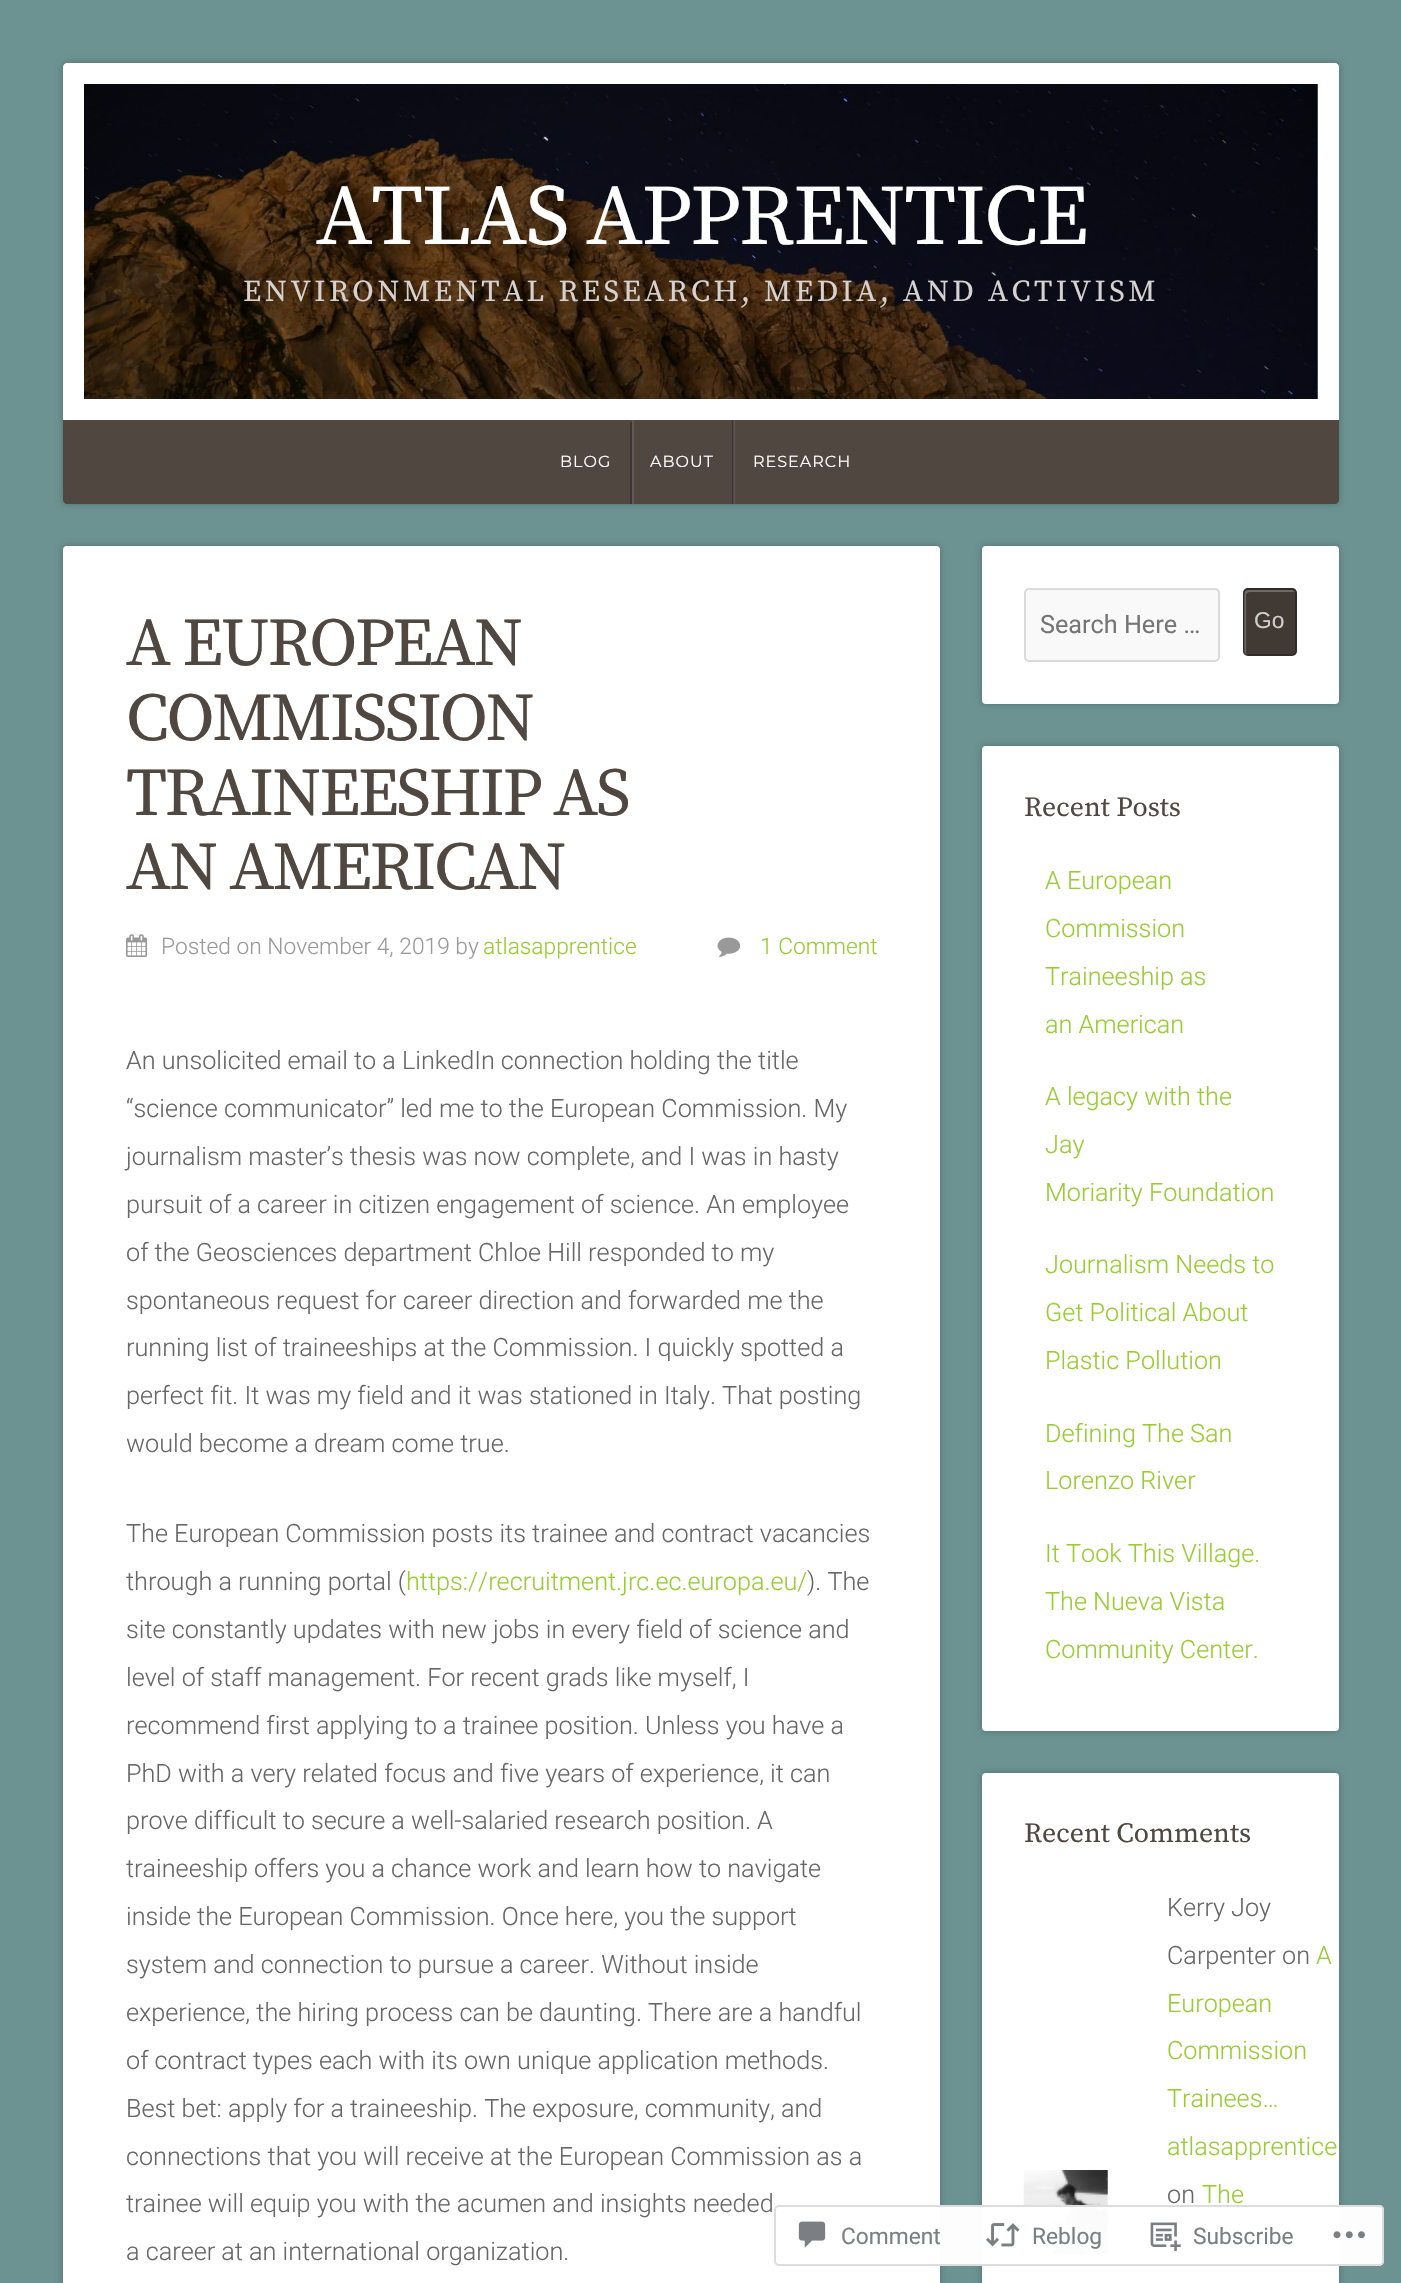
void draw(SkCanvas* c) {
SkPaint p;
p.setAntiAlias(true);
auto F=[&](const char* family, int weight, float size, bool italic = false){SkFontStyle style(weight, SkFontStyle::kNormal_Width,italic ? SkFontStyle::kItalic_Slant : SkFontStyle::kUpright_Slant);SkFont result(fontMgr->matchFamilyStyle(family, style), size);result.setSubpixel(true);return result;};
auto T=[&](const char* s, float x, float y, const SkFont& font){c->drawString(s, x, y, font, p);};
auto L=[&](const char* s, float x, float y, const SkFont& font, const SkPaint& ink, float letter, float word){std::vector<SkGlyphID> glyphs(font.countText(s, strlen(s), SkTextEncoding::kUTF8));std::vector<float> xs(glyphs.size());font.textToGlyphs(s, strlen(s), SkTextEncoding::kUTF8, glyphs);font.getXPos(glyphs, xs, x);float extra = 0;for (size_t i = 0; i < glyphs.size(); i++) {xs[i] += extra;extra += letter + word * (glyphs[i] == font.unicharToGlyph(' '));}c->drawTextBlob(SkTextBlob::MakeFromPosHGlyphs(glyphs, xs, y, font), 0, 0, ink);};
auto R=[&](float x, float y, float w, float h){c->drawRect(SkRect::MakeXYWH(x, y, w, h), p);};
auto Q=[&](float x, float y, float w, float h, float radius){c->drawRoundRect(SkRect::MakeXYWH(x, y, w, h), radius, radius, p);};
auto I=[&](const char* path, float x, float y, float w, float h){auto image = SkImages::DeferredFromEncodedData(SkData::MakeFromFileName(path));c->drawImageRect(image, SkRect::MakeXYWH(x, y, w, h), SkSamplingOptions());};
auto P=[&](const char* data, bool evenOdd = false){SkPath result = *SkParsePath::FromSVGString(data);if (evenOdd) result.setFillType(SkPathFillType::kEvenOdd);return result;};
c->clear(0xff6c9292);
p.setColor(0x3d000000);
p.setMaskFilter(SkMaskFilter::MakeBlur(kNormal_SkBlurStyle, 3.5));
c->drawRoundRect(SkRect::MakeXYWH(63,63,1276,441),4,4,p);
p.setMaskFilter(nullptr);
p.setColor(0xffffffff);
c->drawPath(P("M67 63h1268c2 0 4 2 4 4v353h-1276v-353c0-2 2-4 4-4z"),p);
I("1.png",84,84,1234,315);
auto f1 = F("Source Serif Pro",400,85.75);
L("ATLAS APPRENTICE",316,244,f1,p,-1.75,0);
auto f2 = F("Source Serif Pro",400,30.25);
p.setColor(0xffd6d2d0);
L("ENVIRONMENTAL RESEARCH, MEDIA, AND ACTIVISM",243,301,f2,p,3.5,0);
p.setColor(0xff504741);
c->drawPath(P("M63 420h1276v80c0 2-2 4-4 4h-1268c-2 0-4-2-4-4z"),p);
p.setColor(0xff625954);
R(734,420,1,84);
p.setColor(0xff3c3531);
R(630,422,2,82);
auto f3 = F("Montserrat",400,16);
p.setColor(0xffffffff);
L("BLOG",560,467,f3,p,1,0);
p.setColor(0xff3c3531);
R(732,420,1,84);
p.setColor(0xff504946);
R(733,420,1,84);
p.setColor(0xff625954);
R(632,420,2,84);
p.setColor(0xffffffff);
L("ABOUT",650,467,f3,p,1,0);
L("RESEARCH",753,467,f3,p,1,0);
p.setColor(0x3d000000);
p.setMaskFilter(SkMaskFilter::MakeBlur(kNormal_SkBlurStyle, 3.5));
c->drawRoundRect(SkRect::MakeXYWH(63,546,877,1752),4,4,p);
p.setMaskFilter(nullptr);
p.setColor(0xffffffff);
Q(63,546,877,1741,4);
auto f4 = F("Source Serif Pro",400,68);
p.setColor(0xff504741);
L("A EUROPEAN",126,665,f4,p,-2.5,0);
L("COMMISSION",126,740,f4,p,-2.5,0);
L("TRAINEESHIP AS",126,815,f4,p,-2.5,0);
L("AN AMERICAN",126,889,f4,p,-2.5,0);
I("2.png",126,934,22,23);
auto f5 = F("Roboto",300,22.75);
p.setColor(0xff999999);
T("Posted on November 4, 2019 by",161,954,f5);
p.setColor(0xff99cc33);
T("atlasapprentice",483,954,f5);
I("3.png",717,937,24,20);
T("1 Comment",760,954,f5);
auto f6 = F("Roboto",300,25.2);
p.setColor(0xff666666);
T("An unsolicited email to a LinkedIn connection holding the title",126,1069,f6);
T("“science communicator” led me to the European Commission. My",126,1117,f6);
T("journalism master’s thesis was now complete, and I was in hasty",126,1165,f6);
T("pursuit of a career in citizen engagement of science. An employee",126,1213,f6);
T("of the Geosciences department Chloe Hill responded to my",126,1261,f6);
T("spontaneous request for career direction and forwarded me the",126,1309,f6);
T("running list of traineeships at the Commission. I quickly spotted a",126,1356,f6);
T("perfect fit. It was my field and it was stationed in Italy. That posting",126,1404,f6);
T("would become a dream come true.",126,1452,f6);
T("The European Commission posts its trainee and contract vacancies",126,1542,f6);
T("through a running portal (",126,1590,f6);
p.setColor(0xff99cc33);
T("https://recruitment.jrc.ec.europa.eu/",406,1590,f6);
p.setColor(0xff666666);
T("). The",807,1590,f6);
T("site constantly updates with new jobs in every field of science and",126,1638,f6);
T("level of staff management. For recent grads like myself, I",126,1686,f6);
T("recommend first applying to a trainee position. Unless you have a",126,1734,f6);
T("PhD with a very related focus and five years of experience, it can",126,1782,f6);
T("prove difficult to secure a well-salaried research position. A",126,1829,f6);
T("traineeship offers you a chance work and learn how to navigate",126,1877,f6);
T("inside the European Commission. Once here, you the support",126,1925,f6);
T("system and connection to pursue a career. Without inside",126,1973,f6);
T("experience, the hiring process can be daunting. There are a handful",126,2021,f6);
T("of contract types each with its own unique application methods.",126,2069,f6);
T("Best bet: apply for a traineeship. The exposure, community, and",126,2117,f6);
T("connections that you will receive at the European Commission as a",126,2165,f6);
T("trainee will equip you with the acumen and insights needed",126,2212,f6);
T("a career at an international organization.",126,2260,f6);
p.setColor(0x3d000000);
p.setMaskFilter(SkMaskFilter::MakeBlur(kNormal_SkBlurStyle, 3.5));
c->drawRoundRect(SkRect::MakeXYWH(982,546,357,158),4,4,p);
p.setMaskFilter(nullptr);
p.setColor(0xffffffff);
Q(982,546,357,158,4);
p.setColor(0xfff9f9f9);
Q(1024,588,196,74,5);
p.setStroke(true);
p.setStrokeWidth(2);
p.setColor(0x1f000000);
c->drawRoundRect(SkRect::MakeXYWH(1025,589,194,72),4,4,p);
auto f7 = F("Roboto",400,25.2);
p.setStroke(false);
p.setColor(0xff757575);
T("Search Here …",1040,633,f7);
p.setColor(0xff403934);
Q(1243,588,54,68,5);
p.setColor(0xff6e6965);
c->drawPath(P("M1250 592h45c-1-1-2-2-4-2h-43c-2 0-4 2-4 4v57c0 2 1 3 3 4l-1-2v-58c0-2 2-3 4-3z"),p);
p.setStroke(true);
p.setColor(0x40000000);
c->drawRoundRect(SkRect::MakeXYWH(1244,589,52,66),4,4,p);
auto f8 = F("Liberation Sans",400,22.75);
p.setStroke(false);
p.setColor(0xffcfcecc);
T("Go",1254,628,f8);
p.setColor(0x3d000000);
p.setMaskFilter(SkMaskFilter::MakeBlur(kNormal_SkBlurStyle, 3.5));
c->drawRoundRect(SkRect::MakeXYWH(982,746,357,985),4,4,p);
p.setMaskFilter(nullptr);
p.setColor(0xffffffff);
Q(982,746,357,985,4);
auto f9 = F("Source Serif Pro",400,27.75);
p.setColor(0xff504741);
T("Recent Posts",1024,816,f9);
p.setColor(0xff99cc33);
T("A European",1045,889,f6);
T("Commission",1045,937,f6);
T("Traineeship as",1045,985,f6);
T("an American",1045,1033,f6);
T("A legacy with the",1045,1105,f6);
T("Jay",1045,1153,f6);
T("Moriarity Foundation",1045,1201,f6);
T("Journalism Needs to",1045,1273,f6);
T("Get Political About",1045,1321,f6);
T("Plastic Pollution",1045,1369,f6);
T("Defining The San",1045,1442,f6);
T("Lorenzo River",1045,1489,f6);
T("It Took This Village.",1045,1562,f6);
T("The Nueva Vista",1045,1610,f6);
T("Community Center.",1045,1658,f6);
p.setColor(0x3d000000);
p.setMaskFilter(SkMaskFilter::MakeBlur(kNormal_SkBlurStyle, 3.5));
c->drawRoundRect(SkRect::MakeXYWH(982,1773,357,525),4,4,p);
p.setMaskFilter(nullptr);
p.setColor(0xffffffff);
Q(982,1773,357,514,4);
p.setColor(0xff504741);
T("Recent Comments",1024,1842,f9);
p.setColor(0xff666666);
T("Kerry Joy",1167,1916,f6);
T("Carpenter on",1167,1964,f6);
p.setColor(0xff99cc33);
T("A",1316,1964,f6);
T("European",1167,2012,f6);
T("Commission",1167,2059,f6);
T("Trainees…",1167,2107,f6);
I("4.png",1023,2170,85,84);
T("atlasapprentice",1167,2155,f6);
p.setColor(0xff666666);
T("on",1167,2203,f6);
p.setColor(0xff99cc33);
T("The",1202,2203,f6);
p.setColor(0xfaffffff);
Q(774,2205,610,61,5);
p.setStroke(true);
p.setColor(0xfadcdcde);
c->drawRoundRect(SkRect::MakeXYWH(775,2206,608,59),4,4,p);
I("5.png",798,2221,28,27);
auto f10 = F("Roboto",400,22.75);
p.setStroke(false);
p.setColor(0xff7b7f84);
T("Comment",841,2244,f10);
I("6.png",986,2223,34,24);
T("Reblog",1032,2244,f10);
I("7.png",1150,2222,31,29);
T("Subscribe",1193,2244,f10);
I("8.png",1333,2231,32,8);
}
